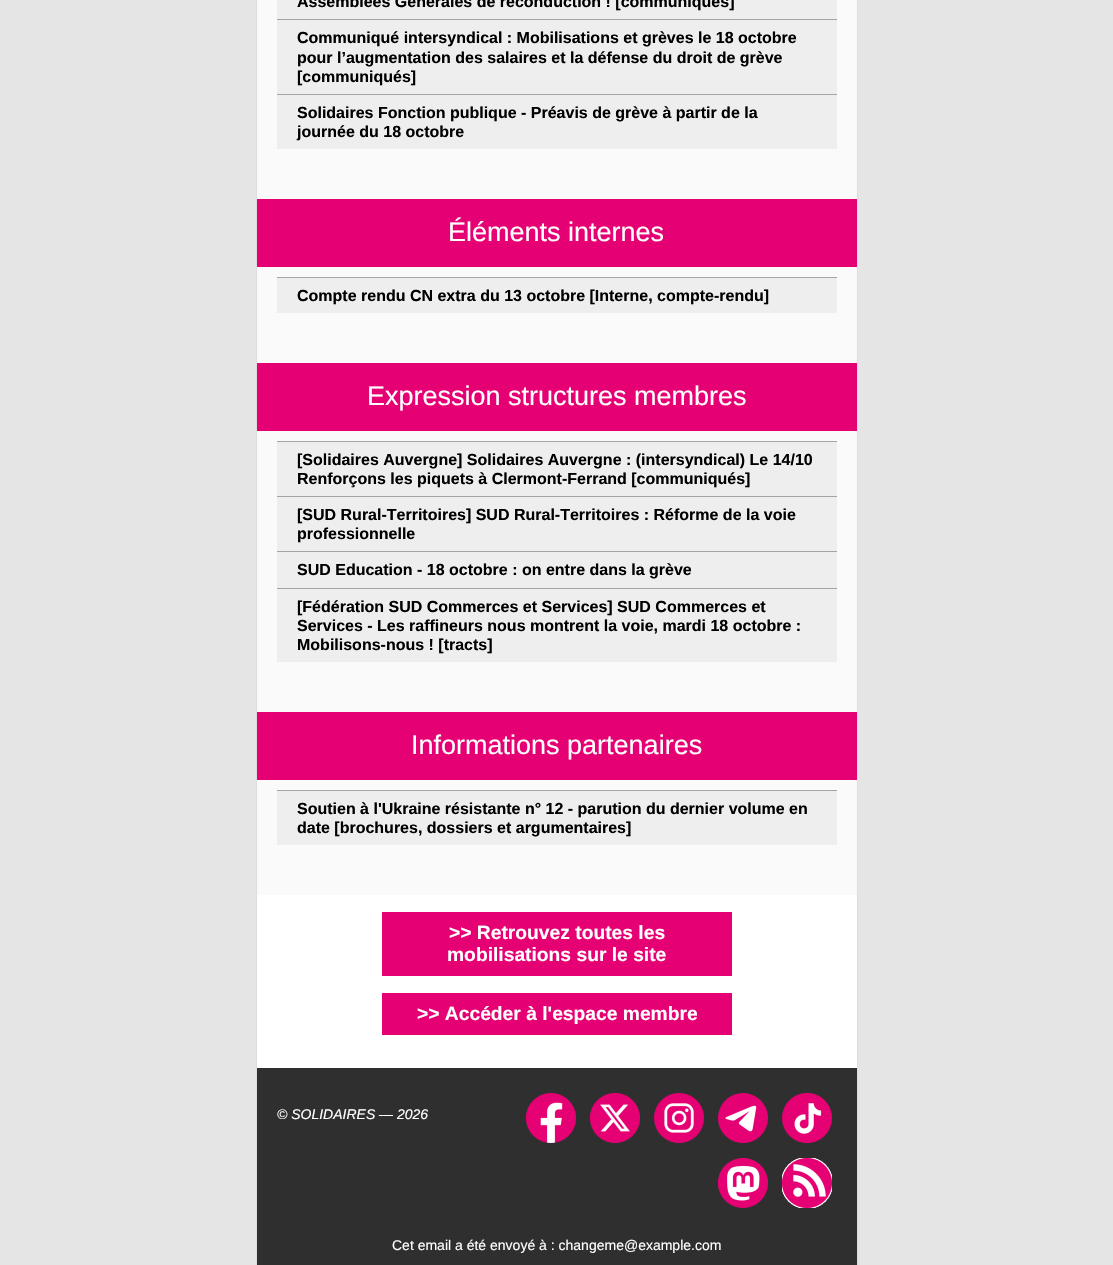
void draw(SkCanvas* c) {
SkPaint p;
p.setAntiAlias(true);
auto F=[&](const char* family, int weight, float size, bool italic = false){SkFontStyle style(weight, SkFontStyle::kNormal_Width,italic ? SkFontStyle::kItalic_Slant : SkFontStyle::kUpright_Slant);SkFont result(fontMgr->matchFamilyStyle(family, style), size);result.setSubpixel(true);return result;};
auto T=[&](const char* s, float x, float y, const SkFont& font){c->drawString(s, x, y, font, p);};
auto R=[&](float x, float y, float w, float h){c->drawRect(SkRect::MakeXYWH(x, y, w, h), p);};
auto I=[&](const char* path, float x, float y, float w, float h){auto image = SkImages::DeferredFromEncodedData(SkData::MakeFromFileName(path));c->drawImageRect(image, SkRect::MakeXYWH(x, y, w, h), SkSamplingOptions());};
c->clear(0xffe5e5e5);
p.setColor(0xffffffff);
R(257,895,600,173);
p.setStroke(true);
p.setStrokeWidth(1);
p.setColor(0xffdddddd);
c->drawRect(SkRect::MakeXYWH(256.5,-.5,601,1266),p);
p.setStroke(false);
p.setColor(0xfffafafa);
R(257,0,600,199);
p.setColor(0xffeeeeee);
R(277,0,560,19);
auto f1 = F("Liberation Sans",700,16);
p.setColor(0xff000000);
T("Assemblées Générales de reconduction ! [communiqués]",297,7,f1);
p.setColor(0xffeeeeee);
R(277,20,560,74);
p.setColor(0xffa6a5a5);
R(277,19,560,1);
p.setColor(0xff000000);
T("Communiqué intersyndical : Mobilisations et grèves le 18 octobre",297,43,f1);
T("pour l’augmentation des salaires et la défense du droit de grève",297,63,f1);
T("[communiqués]",297,82,f1);
p.setColor(0xffeeeeee);
R(277,95,560,54);
p.setColor(0xffa6a5a5);
R(277,94,560,1);
p.setColor(0xff000000);
T("Solidaires Fonction publique - Préavis de grève à partir de la",297,118,f1);
T("journée du 18 octobre",297,137,f1);
p.setColor(0xffe50073);
R(257,199,600,68);
auto f2 = F("Liberation Sans",400,27);
p.setColor(0xffffffff);
T("Éléments internes",448,241,f2);
p.setColor(0xfffafafa);
R(257,267,600,96);
p.setColor(0xffeeeeee);
R(277,278,560,35);
p.setColor(0xffa6a5a5);
R(277,277,560,1);
p.setColor(0xff000000);
T("Compte rendu CN extra du 13 octobre [Interne, compte-rendu]",297,301,f1);
p.setColor(0xffe50073);
R(257,363,600,68);
p.setColor(0xffffffff);
T("Expression structures membres",367,405,f2);
p.setColor(0xfffafafa);
R(257,431,600,281);
p.setColor(0xffeeeeee);
R(277,442,560,54);
p.setColor(0xffa6a5a5);
R(277,441,560,1);
p.setColor(0xff000000);
T("[Solidaires Auvergne] Solidaires Auvergne : (intersyndical) Le 14/10",297,465,f1);
T("Renforçons les piquets à Clermont-Ferrand [communiqués]",297,484,f1);
p.setColor(0xffeeeeee);
R(277,497,560,54);
p.setColor(0xffa6a5a5);
R(277,496,560,1);
p.setColor(0xff000000);
T("[SUD Rural-Territoires] SUD Rural-Territoires : Réforme de la voie",297,520,f1);
T("professionnelle",297,539,f1);
p.setColor(0xffeeeeee);
R(277,552,560,36);
p.setColor(0xffa6a5a5);
R(277,551,560,1);
p.setColor(0xff000000);
T("SUD Education - 18 octobre : on entre dans la grève",297,575,f1);
p.setColor(0xffeeeeee);
R(277,589,560,73);
p.setColor(0xffa6a5a5);
R(277,588,560,1);
p.setColor(0xff000000);
T("[Fédération SUD Commerces et Services] SUD Commerces et",297,612,f1);
T("Services - Les raffineurs nous montrent la voie, mardi 18 octobre :",297,631,f1);
T("Mobilisons-nous ! [tracts]",297,650,f1);
p.setColor(0xffe50073);
R(257,712,600,68);
p.setColor(0xffffffff);
T("Informations partenaires",411,754,f2);
p.setColor(0xfffafafa);
R(257,780,600,115);
p.setColor(0xffeeeeee);
R(277,791,560,54);
p.setColor(0xffa6a5a5);
R(277,790,560,1);
p.setColor(0xff000000);
T("Soutien à l'Ukraine résistante n° 12 - parution du dernier volume en",297,814,f1);
T("date [brochures, dossiers et argumentaires]",297,833,f1);
p.setColor(0xffe50073);
R(382,912,350,64);
auto f3 = F("Liberation Sans",700,19.25);
p.setColor(0xffffffff);
T(">> Retrouvez toutes les",449,939,f3);
T("mobilisations sur le site",447,961,f3);
p.setColor(0xffe50073);
R(382,993,350,42);
p.setColor(0xffffffff);
T(">> Accéder à l'espace membre",417,1020,f3);
p.setColor(0xff302f2f);
R(257,1068,600,197);
auto f4 = F("Liberation Sans",400,14,true);
p.setColor(0xffffffff);
T("© SOLIDAIRES — 2026",277,1119,f4);
I("1.png",526,1093,50,50);
I("2.png",590,1093,50,50);
I("3.png",654,1093,50,50);
I("4.png",718,1093,50,50);
I("5.png",782,1093,50,50);
I("6.png",718,1158,50,50);
I("7.png",782,1158,50,50);
auto f5 = F("Liberation Sans",400,14);
T("Cet email a été envoyé à : changeme@example.com",392,1250,f5);
}
